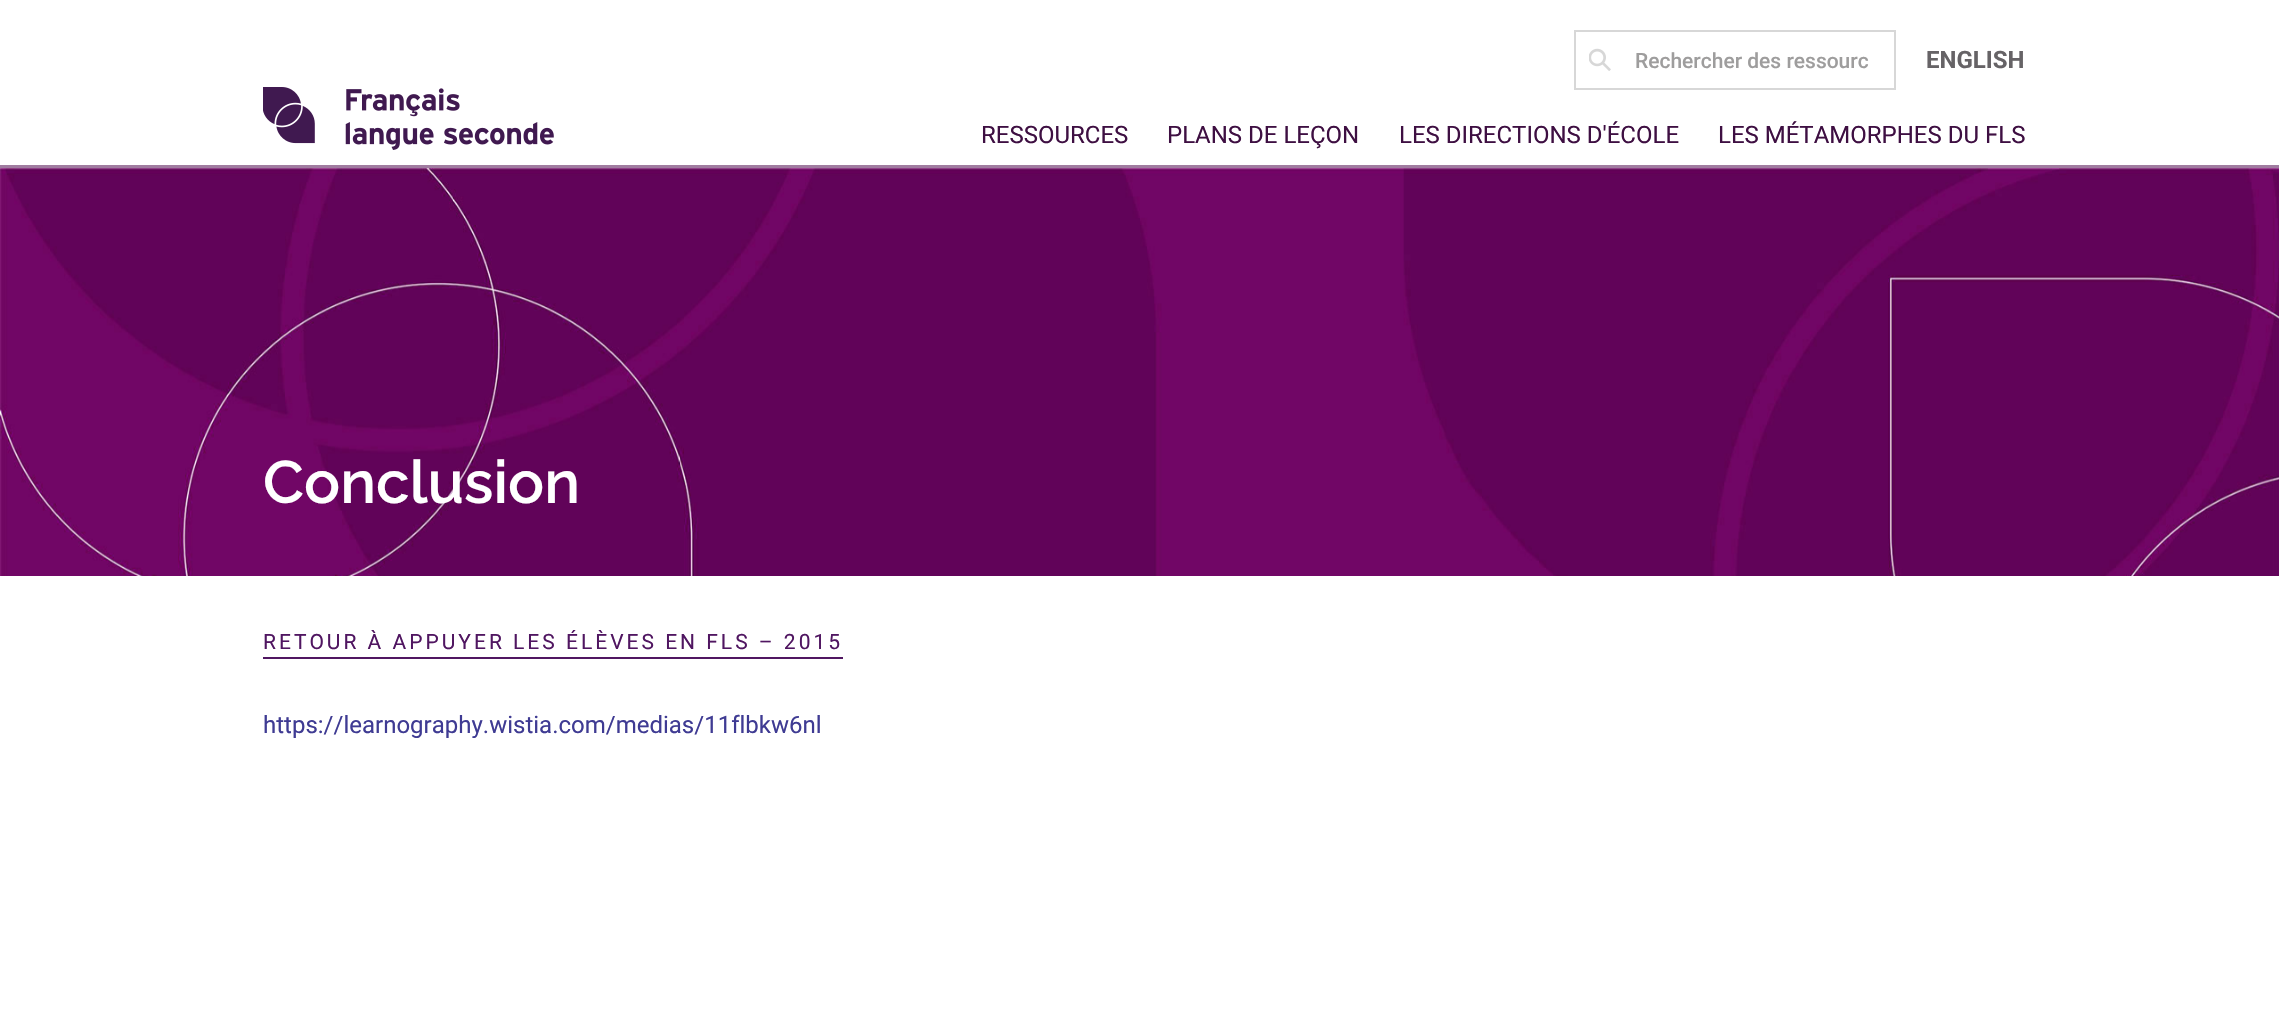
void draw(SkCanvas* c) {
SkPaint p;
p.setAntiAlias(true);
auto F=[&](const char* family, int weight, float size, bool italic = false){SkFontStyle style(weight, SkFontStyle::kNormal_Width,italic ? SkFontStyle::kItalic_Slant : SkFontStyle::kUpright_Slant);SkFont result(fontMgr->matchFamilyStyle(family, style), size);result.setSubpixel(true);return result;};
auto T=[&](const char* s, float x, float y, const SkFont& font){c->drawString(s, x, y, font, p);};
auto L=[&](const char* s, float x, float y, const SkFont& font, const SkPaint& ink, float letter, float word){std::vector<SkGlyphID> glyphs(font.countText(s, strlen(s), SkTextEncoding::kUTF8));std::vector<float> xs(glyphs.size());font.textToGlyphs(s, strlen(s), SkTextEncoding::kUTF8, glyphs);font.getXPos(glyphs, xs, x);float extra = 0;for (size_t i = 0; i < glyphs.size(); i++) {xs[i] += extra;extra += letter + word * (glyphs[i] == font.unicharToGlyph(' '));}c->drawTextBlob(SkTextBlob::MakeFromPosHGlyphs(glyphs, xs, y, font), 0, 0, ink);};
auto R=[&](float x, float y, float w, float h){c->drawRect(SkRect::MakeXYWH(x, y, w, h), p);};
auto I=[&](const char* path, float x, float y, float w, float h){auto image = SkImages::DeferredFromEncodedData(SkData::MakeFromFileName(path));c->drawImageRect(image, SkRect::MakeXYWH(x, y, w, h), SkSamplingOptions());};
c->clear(0xffffffff);
p.setColor(0xffa07ca0);
R(0,165,2279,3);
I("1.png",263,87,291,63);
p.setStroke(true);
p.setStrokeWidth(2);
p.setColor(0xffd7d7d7);
c->drawRect(SkRect::MakeXYWH(1575,31,320,58),p);
I("2.png",1589,48,22,23);
auto f1 = F("Roboto",500,21);
p.setStroke(false);
p.setColor(0xff9e9d9d);
T("Rechercher des ressourc",1635,68,f1);
auto f2 = F("Roboto",700,24);
p.setColor(0xff666366);
T("ENGLISH",1926,68,f2);
auto f3 = F("Roboto",400,24);
p.setColor(0xff3e0f42);
T("RESSOURCES",981,143,f3);
T("PLANS DE LEÇON",1167,143,f3);
T("LES DIRECTIONS D'ÉCOLE",1399,143,f3);
T("LES MÉTAMORPHES DU FLS",1718,143,f3);
I("3.png",0,168,2279,408);
auto f4 = F("Raleway",600,60);
p.setColor(0xffffffff);
T("Conclusion",263,503,f4);
auto f5 = F("Roboto",400,21);
p.setColor(0xff501661);
L("RETOUR À APPUYER LES ÉLÈVES EN FLS – 2015",263,649,f5,p,3,0);
R(263,657,580,2);
p.setColor(0xff3f3b93);
T("https://learnography.wistia.com/medias/11flbkw6nl",263,733,f3);
}
